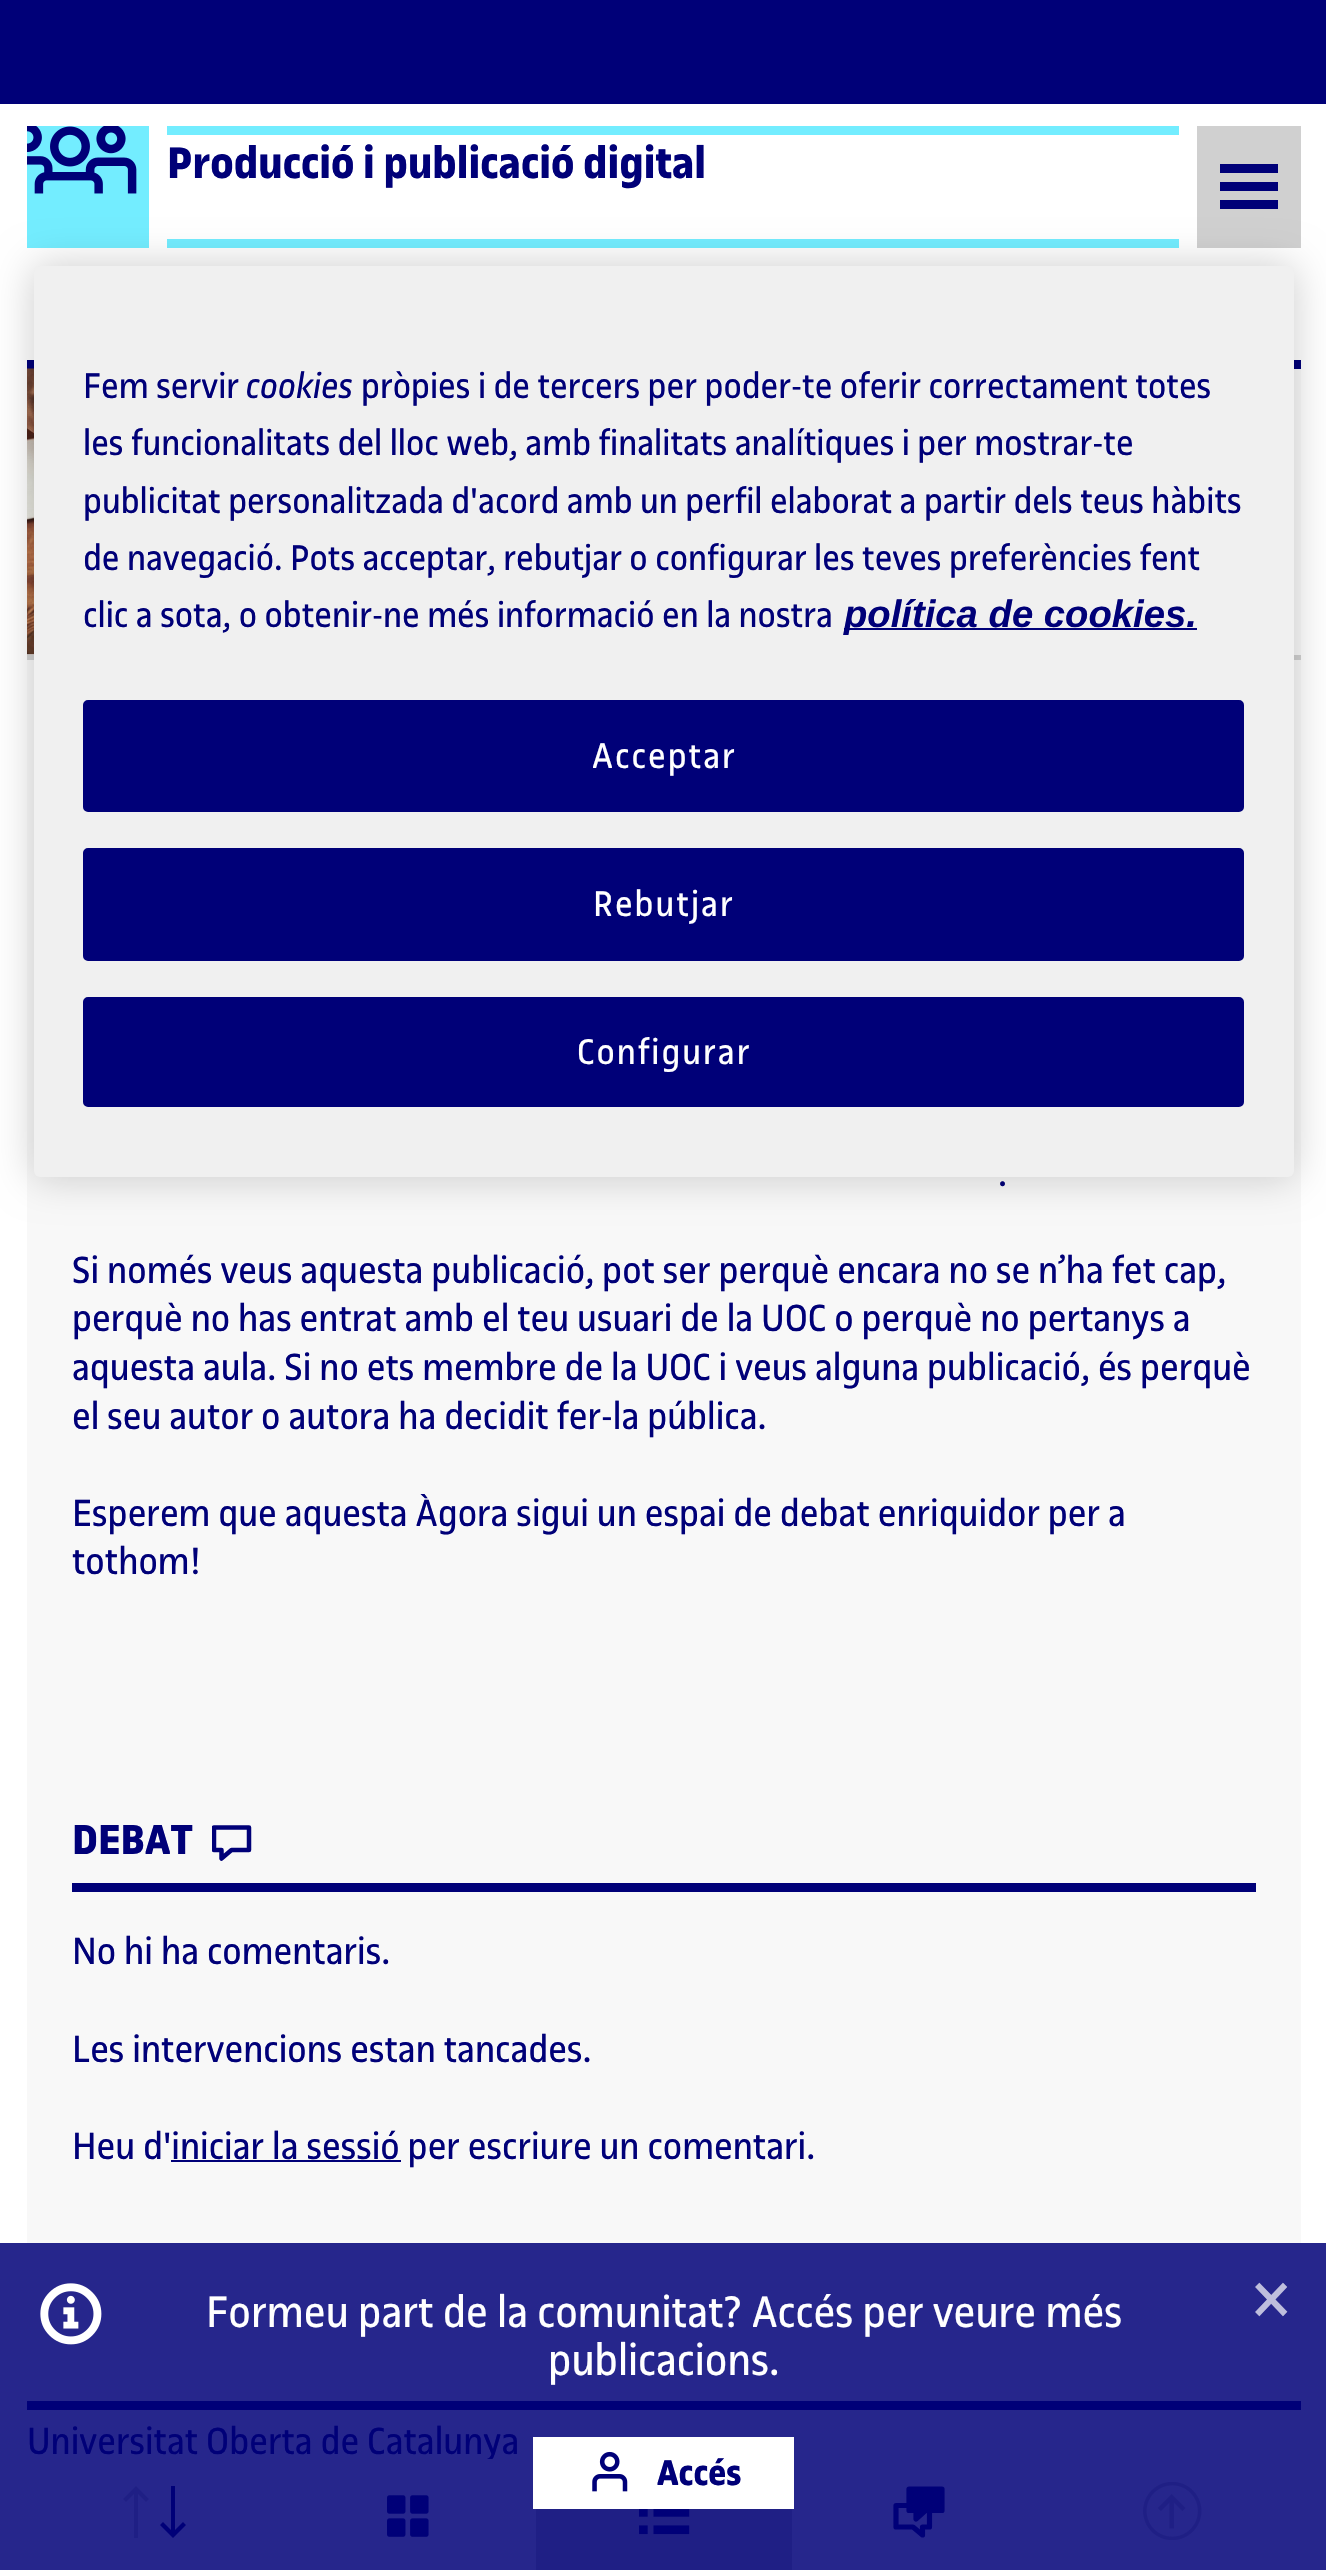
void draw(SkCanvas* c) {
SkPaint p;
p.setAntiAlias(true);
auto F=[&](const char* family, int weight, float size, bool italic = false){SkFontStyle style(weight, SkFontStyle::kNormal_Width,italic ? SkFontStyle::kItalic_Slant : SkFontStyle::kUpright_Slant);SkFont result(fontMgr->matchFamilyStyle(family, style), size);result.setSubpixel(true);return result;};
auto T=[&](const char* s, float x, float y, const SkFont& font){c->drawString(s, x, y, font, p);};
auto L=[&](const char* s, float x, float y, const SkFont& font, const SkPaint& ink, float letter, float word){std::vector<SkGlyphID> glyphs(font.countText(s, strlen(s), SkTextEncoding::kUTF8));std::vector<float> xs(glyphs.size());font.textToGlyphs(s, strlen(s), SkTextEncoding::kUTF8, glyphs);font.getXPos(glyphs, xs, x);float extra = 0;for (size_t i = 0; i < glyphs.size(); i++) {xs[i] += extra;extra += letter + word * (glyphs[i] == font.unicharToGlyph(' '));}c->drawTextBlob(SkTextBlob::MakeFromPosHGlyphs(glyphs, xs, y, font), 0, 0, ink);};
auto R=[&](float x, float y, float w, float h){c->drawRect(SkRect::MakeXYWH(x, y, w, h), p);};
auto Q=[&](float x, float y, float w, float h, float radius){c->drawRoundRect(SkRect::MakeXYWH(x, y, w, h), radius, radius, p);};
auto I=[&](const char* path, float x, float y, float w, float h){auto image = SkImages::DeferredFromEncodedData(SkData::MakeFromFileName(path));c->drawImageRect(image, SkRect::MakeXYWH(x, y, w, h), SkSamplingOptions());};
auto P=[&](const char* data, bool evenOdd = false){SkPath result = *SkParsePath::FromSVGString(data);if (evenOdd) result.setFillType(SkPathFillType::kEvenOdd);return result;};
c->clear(0xffffffff);
p.setColor(0xff26268c);
R(0,2243,1326,216);
p.setColor(0xff000078);
R(0,0,1326,104);
p.setColor(0xff73edff);
R(27,126,122,122);
I("1.png",27,126,110,68);
R(167,126,1012,9);
R(167,239,1012,9);
auto f1 = F("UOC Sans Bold",700,47.25);
p.setColor(0xff000078);
T("Producció i publicació digital",167,178,f1);
p.setColor(0xffd0d0d0);
R(1197,126,104,122);
p.setColor(0xff000078);
R(1220,164,58,9);
R(1220,182,58,9);
R(1220,200,58,9);
p.setColor(0xfff8f8f8);
R(27,369,1274,1874);
p.setColor(0xff000078);
R(27,360,1274,9);
p.setColor(0xfff3f3f3);
R(27,654,7,1);
I("2.png",27,368,7,287);
p.setColor(0xffd0d0d0);
R(27,655,1274,5);
auto f2 = F("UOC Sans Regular",400,40.5);
p.setColor(0xff000078);
T(".",998,1186,f2);
T("Si només veus aquesta publicació, pot ser perquè encara no se n’ha fet cap,",72,1283,f2);
T("perquè no has entrat amb el teu usuari de la UOC o perquè no pertanys a",72,1331,f2);
T("aquesta aula. Si no ets membre de la UOC i veus alguna publicació, és perquè",72,1380,f2);
T("el seu autor o autora ha decidit fer-la pública.",72,1429,f2);
T("Esperem que aquesta Àgora sigui un espai de debat enriquidor per a",72,1526,f2);
T("tothom!",72,1574,f2);
R(72,1883,1184,9);
auto f3 = F("UOC Sans Bold",700,45);
T("DEBAT",72,1854,f3);
c->save();
c->clipRect(SkRect::MakeXYWH(212,1823,40,40));
p.setStroke(true);
p.setStrokeWidth(4.5);
p.setStrokeCap(SkPaint::kRound_Cap);
p.setStrokeJoin(SkPaint::kRound_Join);
c->drawPath(P("M214 1827.5h35v22.5h-17.5l-10 8.5v-8.5h-7.5z"),p);
c->restore();
p.setStroke(false);
T("No hi ha comentaris.",72,1964,f2);
T("Les intervencions estan tancades.",72,2062,f2);
T("Heu d'iniciar la sessió per escriure un comentari.",72,2159,f2);
R(171,2160,230,2);
T("Universitat Oberta de Catalunya",27,2454,f2);
p.setColor(0xff26268c);
R(0,2459,1326,111);
p.setColor(0xff1f1f85);
c->drawPath(P("M136 2486l-13 13l3 3l8-8v44h4v-44l8 8l3-3z"),p);
p.setColor(0xff000078);
c->drawPath(P("M173 2538l13-13l-3-3l-8 8v-44h-4v44l-8-8l-3 3z"),p);
I("3.png",387,2495,42,42);
p.setColor(0xff1f1f85);
R(536,2509,256,61);
I("4.png",639,2509,51,26);
p.setStroke(true);
p.setStrokeWidth(5.2);
p.setColor(0xff000078);
c->drawPath(P("M929.5 2527h-7v8l-9.5-8h-17v-21.5h33.5z"),p);
p.setStroke(false);
c->drawPath(P("M909 2489h33v21.5h-16.5l-9.5 8.5v-8.5h-7z"),p);
p.setStroke(true);
c->drawPath(P("M909 2489h33v21.5h-16.5l-9.5 8.5v-8.5h-7z"),p);
I("5.png",1143,2482,59,58);
I("6.png",40,2283,62,62);
auto f4 = F("UOC Sans Regular",400,47.25);
p.setStroke(false);
p.setColor(0xffffffff);
T("Formeu part de la comunitat? Accés per veure més",206,2327,f4);
T("publicacions.",548,2375,f4);
R(533,2437,261,72);
I("7.png",592,2451,36,41);
auto f5 = F("UOC Sans Bold",700,38.25);
p.setColor(0xff000078);
T("Accés",657,2485,f5);
auto f6 = F("UOC Sans Regular",400,81);
p.setColor(0xffbebedd);
T("×",1251,2327,f6);
p.setColor(0xff000078);
R(27,2401,1274,9);
p.setColor(0x33000000);
p.setMaskFilter(SkMaskFilter::MakeBlur(kNormal_SkBlurStyle, 20));
c->drawRoundRect(SkRect::MakeXYWH(34,266,1260,911),6,6,p);
p.setMaskFilter(nullptr);
p.setColor(0xfff0f0f0);
Q(34,266,1260,911,6);
auto f7 = F("UOC Sans Regular",400,38.25);
p.setColor(0xff000078);
T("Fem servir",83,398,f7);
auto f8 = F("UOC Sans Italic",400,38.25,true);
T("cookies",246,398,f8);
T("pròpies i de tercers per poder-te oferir correctament totes",361,398,f7);
T("les funcionalitats del lloc web, amb finalitats analítiques i per mostrar-te",83,455,f7);
T("publicitat personalitzada d'acord amb un perfil elaborat a partir dels teus hàbits",83,513,f7);
T("de navegació. Pots acceptar, rebutjar o configurar les teves preferències fent",83,570,f7);
T("clic a sota, o obtenir-ne més informació en la nostra",83,627,f7);
R(844,628,353,2);
auto f9 = F("Liberation Sans",700,38.25,true);
T("política de cookies.",844,627,f9);
c->drawRoundRect(SkRect::MakeXYWH(84,701,1159,110),4,4,p);
p.setStroke(true);
p.setStrokeWidth(2);
p.setStrokeCap(SkPaint::kButt_Cap);
p.setStrokeJoin(SkPaint::kMiter_Join);
c->drawRoundRect(SkRect::MakeXYWH(84,701,1159,110),4,4,p);
p.setStroke(false);
p.setColor(0xffffffff);
L("Acceptar",592,768,f7,p,2,0);
p.setColor(0xff000078);
c->drawRoundRect(SkRect::MakeXYWH(84,849,1159,111),4,4,p);
p.setStroke(true);
c->drawRoundRect(SkRect::MakeXYWH(84,849,1159,111),4,4,p);
p.setStroke(false);
p.setColor(0xffffffff);
L("Rebutjar",593,916,f7,p,2,0);
p.setColor(0xff000078);
c->drawRoundRect(SkRect::MakeXYWH(84,998,1159,108),4,4,p);
p.setStroke(true);
c->drawRoundRect(SkRect::MakeXYWH(84,998,1159,108),4,4,p);
p.setStroke(false);
p.setColor(0xffffffff);
L("Configurar",577,1064,f7,p,2,0);
}
